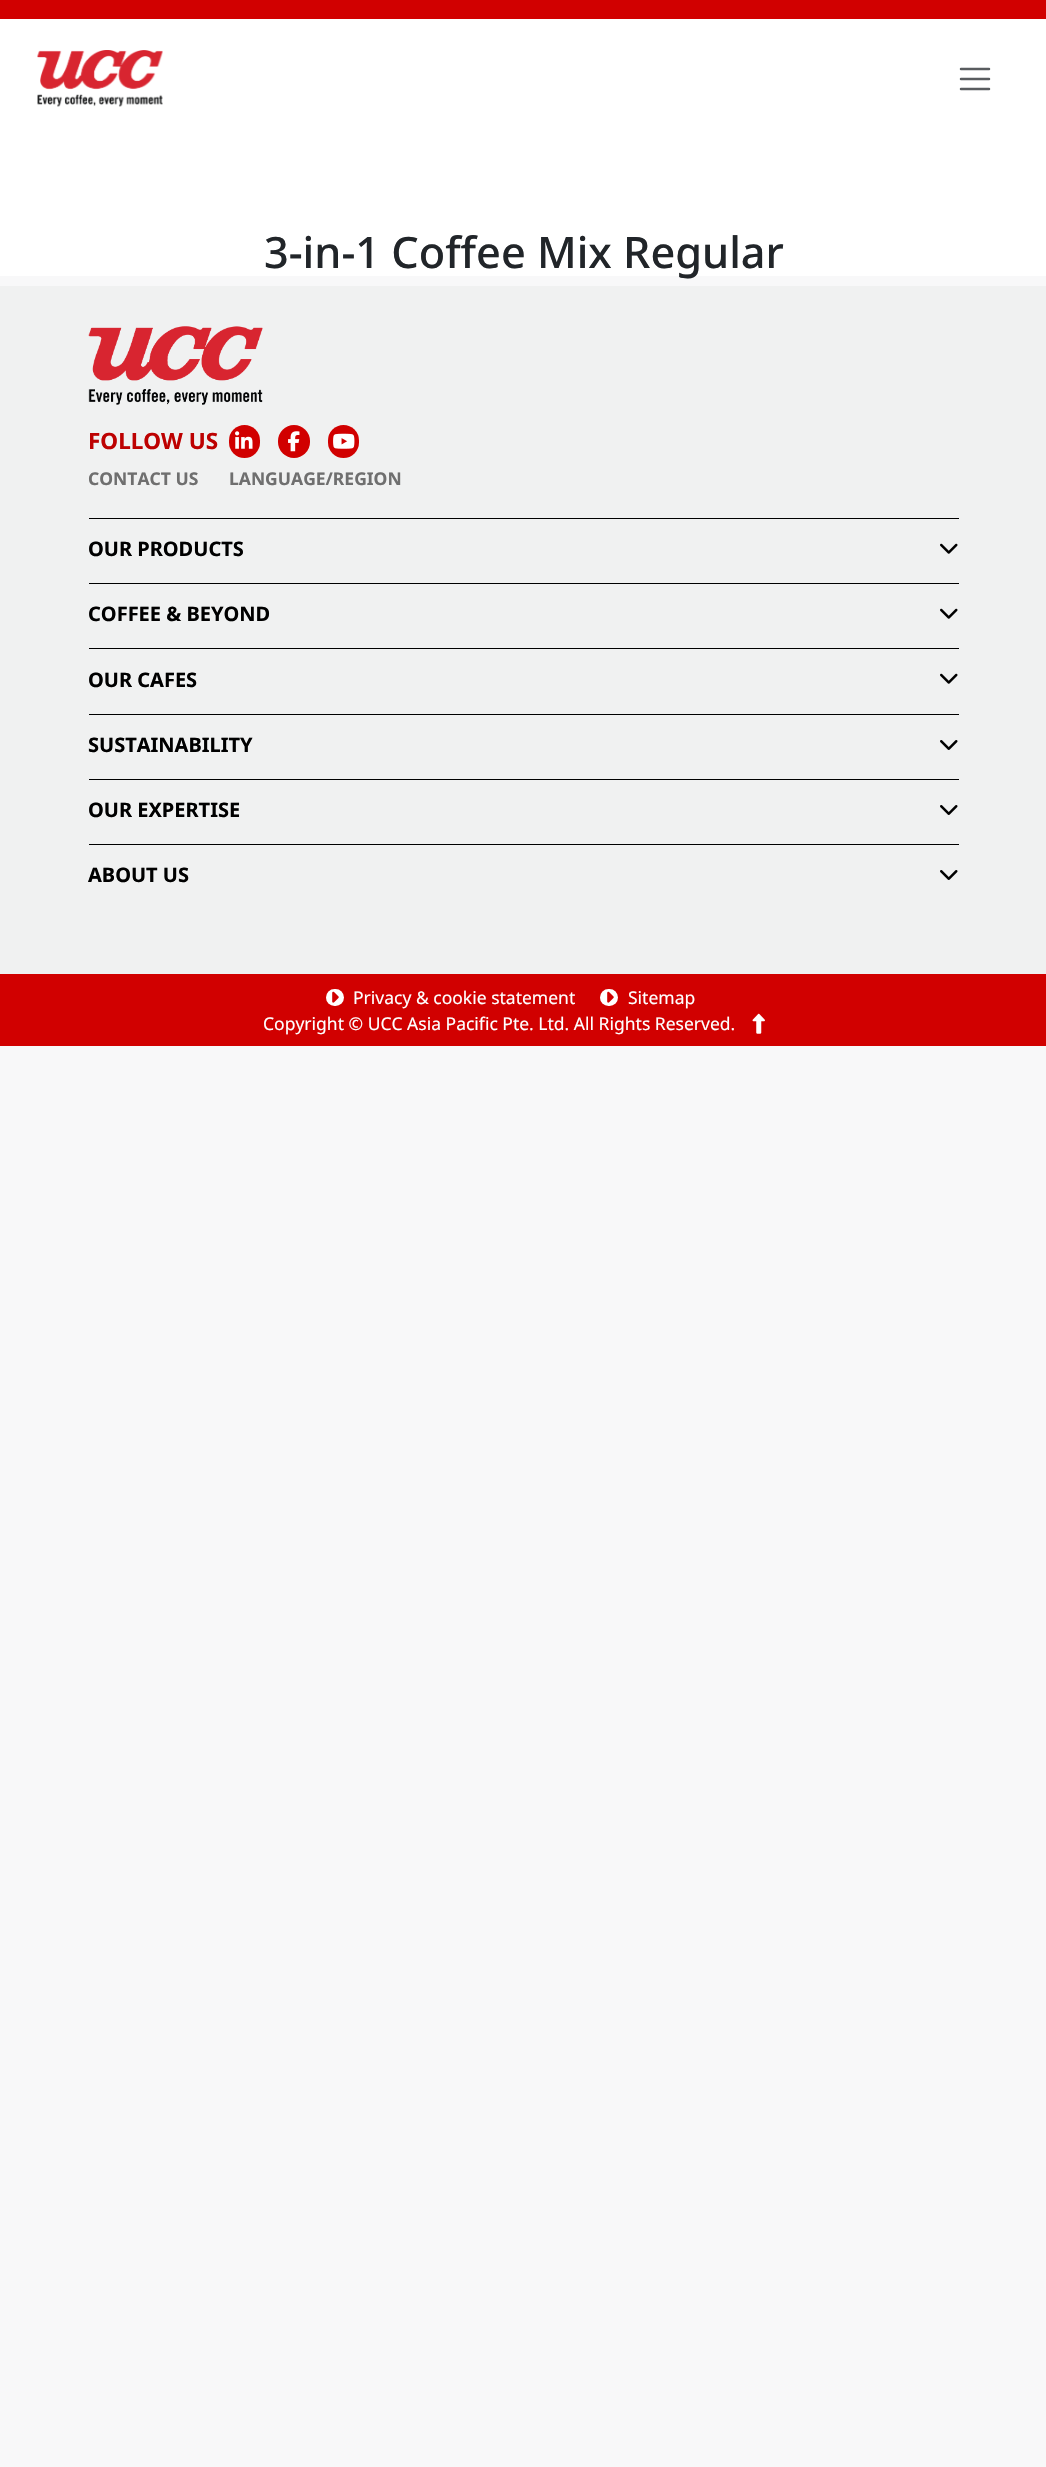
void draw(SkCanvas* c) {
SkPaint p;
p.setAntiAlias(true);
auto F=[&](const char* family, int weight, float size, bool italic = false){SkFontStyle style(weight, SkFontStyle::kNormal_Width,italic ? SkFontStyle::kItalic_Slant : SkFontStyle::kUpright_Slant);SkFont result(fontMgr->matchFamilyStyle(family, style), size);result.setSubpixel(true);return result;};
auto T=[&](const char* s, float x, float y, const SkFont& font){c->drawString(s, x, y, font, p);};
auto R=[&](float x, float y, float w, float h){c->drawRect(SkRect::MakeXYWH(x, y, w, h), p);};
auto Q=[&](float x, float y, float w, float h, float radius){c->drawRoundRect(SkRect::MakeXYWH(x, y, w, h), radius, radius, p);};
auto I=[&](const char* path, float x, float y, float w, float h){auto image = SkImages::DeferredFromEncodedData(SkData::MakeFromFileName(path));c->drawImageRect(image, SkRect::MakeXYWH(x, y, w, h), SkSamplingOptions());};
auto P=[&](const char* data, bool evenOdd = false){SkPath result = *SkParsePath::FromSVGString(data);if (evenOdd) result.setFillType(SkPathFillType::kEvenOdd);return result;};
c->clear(0xfff8f8f9);
p.setColor(0xffd10000);
R(0,0,1046,19);
p.setColor(0xffffffff);
R(0,19,1046,257);
I("1.png",37,50,126,57);
p.setStroke(true);
p.setStrokeWidth(2.5);
p.setStrokeCap(SkPaint::kRound_Cap);
p.setColor(0xff595c5f);
c->drawPath(P("M961 69h28m-28 10h28m-28 10h28"),p);
auto f1 = F("Noto Sans",500,43.25);
p.setStroke(false);
p.setColor(0xff212529);
T("3-in-1 Coffee Mix Regular",264,268,f1);
p.setColor(0xfff0f1f1);
R(0,286,1046,688);
I("2.png",88,326,175,79);
auto f2 = F("Noto Sans",700,22.5);
p.setColor(0xffbd0101);
T("FOLLOW US",88,449,f2);
p.setColor(0xffd10000);
Q(229,425,31,33,15.5);
I("3.png",235,431,18,18);
Q(278,425,32,33,16);
I("4.png",288,431,12,21);
Q(328,425,31,33,15.5);
I("5.png",333,433,22,16);
auto f3 = F("Noto Sans",700,17.5);
p.setColor(0xff6f6f6f);
T("CONTACT US",88,485,f3);
T("LANGUAGE/REGION",229,485,f3);
p.setColor(0xff000000);
R(89,518,870,1);
auto f4 = F("Noto Sans",700,20);
T("OUR PRODUCTS",88,556,f4);
I("6.png",940,543,18,11);
R(89,583,870,1);
T("COFFEE & BEYOND",88,621,f4);
I("6.png",940,608,18,11);
R(89,648,870,1);
T("OUR CAFES",88,687,f4);
I("6.png",940,673,18,11);
R(89,714,870,1);
T("SUSTAINABILITY",88,752,f4);
I("7.png",940,740,18,10);
R(89,779,870,1);
T("OUR EXPERTISE",88,817,f4);
I("7.png",940,805,18,10);
R(89,844,870,1);
T("ABOUT US",88,882,f4);
I("7.png",940,870,18,10);
p.setColor(0xffd10000);
R(0,974,1046,72);
p.setColor(0xffffffff);
Q(326,989,18,17,8.5);
I("8.png",332,991,7,12);
auto f5 = F("Noto Sans",400,17.5);
T("Privacy & cookie statement",353,1004,f5);
Q(600,989,18,17,8.5);
I("8.png",607,991,7,12);
T("Sitemap",628,1004,f5);
T("Copyright © UCC Asia Pacific Pte. Ltd. All Rights Reserved.",263,1030,f5);
I("9.png",752,1013,13,21);
}
